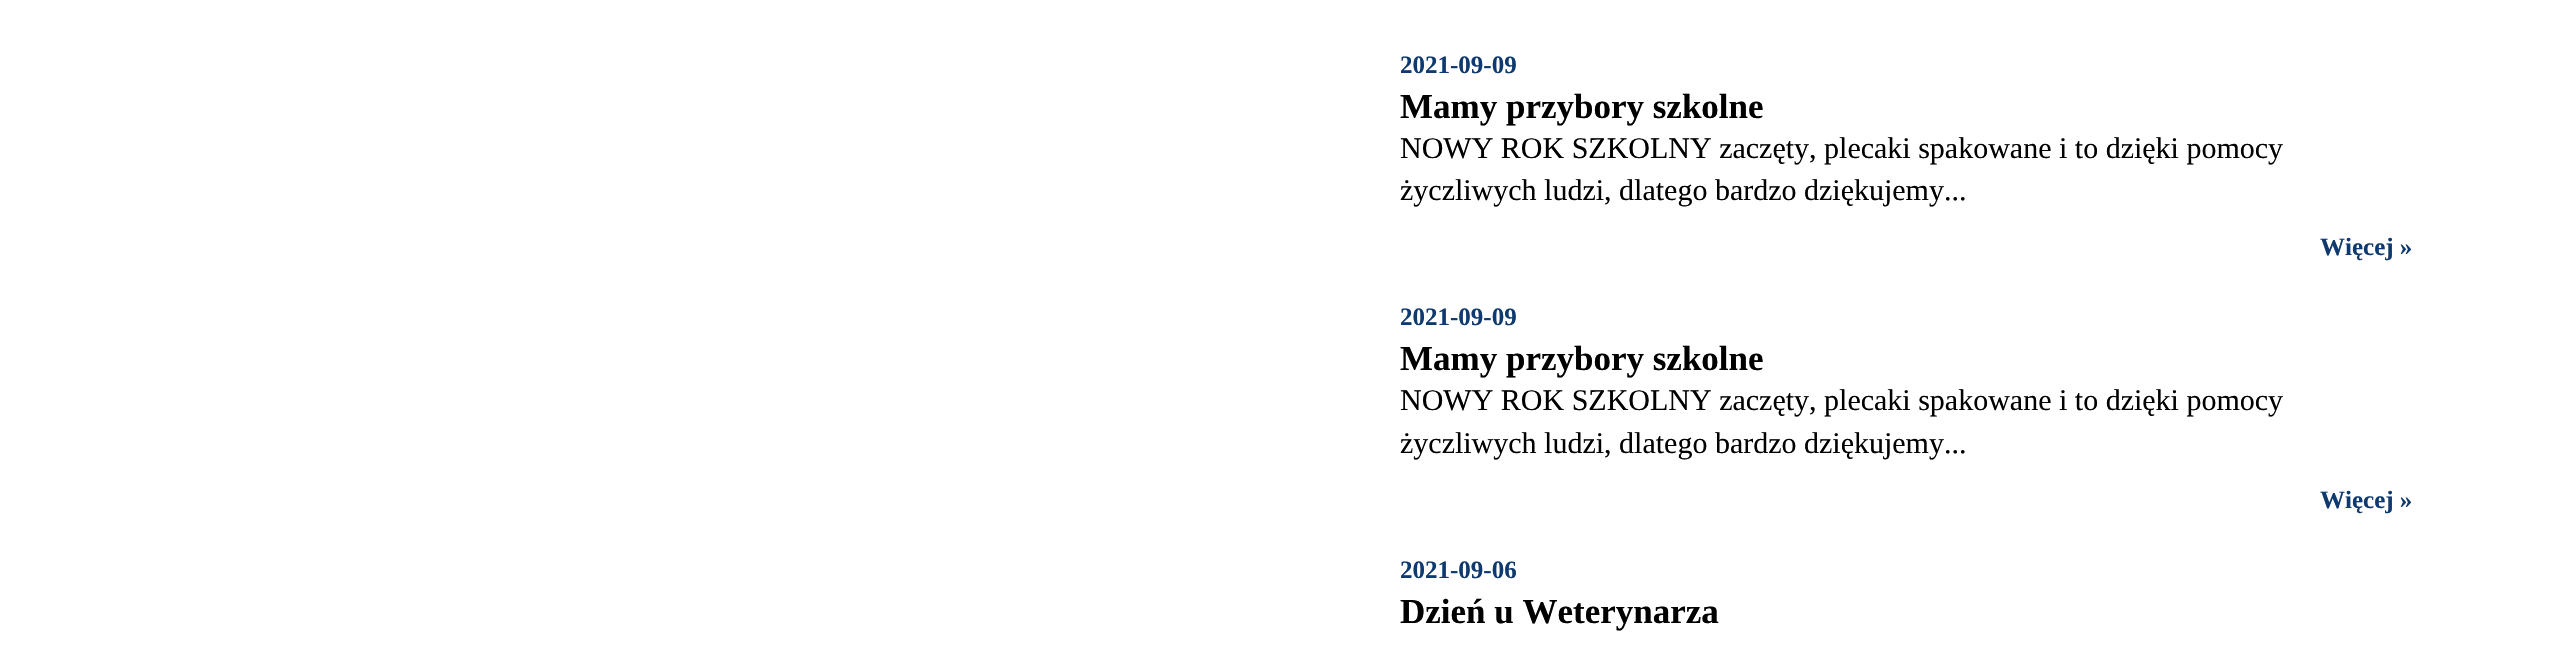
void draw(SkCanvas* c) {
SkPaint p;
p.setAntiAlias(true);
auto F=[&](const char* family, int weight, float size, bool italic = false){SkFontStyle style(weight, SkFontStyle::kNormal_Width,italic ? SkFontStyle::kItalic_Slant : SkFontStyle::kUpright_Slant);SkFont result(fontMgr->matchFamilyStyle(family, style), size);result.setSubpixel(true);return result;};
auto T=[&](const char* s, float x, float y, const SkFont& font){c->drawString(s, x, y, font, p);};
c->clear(0xffffffff);
auto f1 = F("Liberation Serif",700,25);
p.setColor(0xff0f3a6f);
T("2021-09-09",1400,73,f1);
auto f2 = F("Liberation Serif",700,35);
p.setColor(0xff000000);
T("Mamy przybory szkolne",1400,118,f2);
auto f3 = F("Liberation Serif",400,30);
T("NOWY ROK SZKOLNY zaczęty, plecaki spakowane i to dzięki pomocy",1400,158,f3);
T("życzliwych ludzi, dlatego bardzo dziękujemy...",1400,200,f3);
p.setColor(0xff0f3a6f);
T("Więcej »",2320,255,f1);
T("2021-09-09",1400,325,f1);
p.setColor(0xff000000);
T("Mamy przybory szkolne",1400,370,f2);
T("NOWY ROK SZKOLNY zaczęty, plecaki spakowane i to dzięki pomocy",1400,410,f3);
T("życzliwych ludzi, dlatego bardzo dziękujemy...",1400,453,f3);
p.setColor(0xff0f3a6f);
T("Więcej »",2320,508,f1);
T("2021-09-06",1400,578,f1);
p.setColor(0xff000000);
T("Dzień u Weterynarza",1400,623,f2);
}
